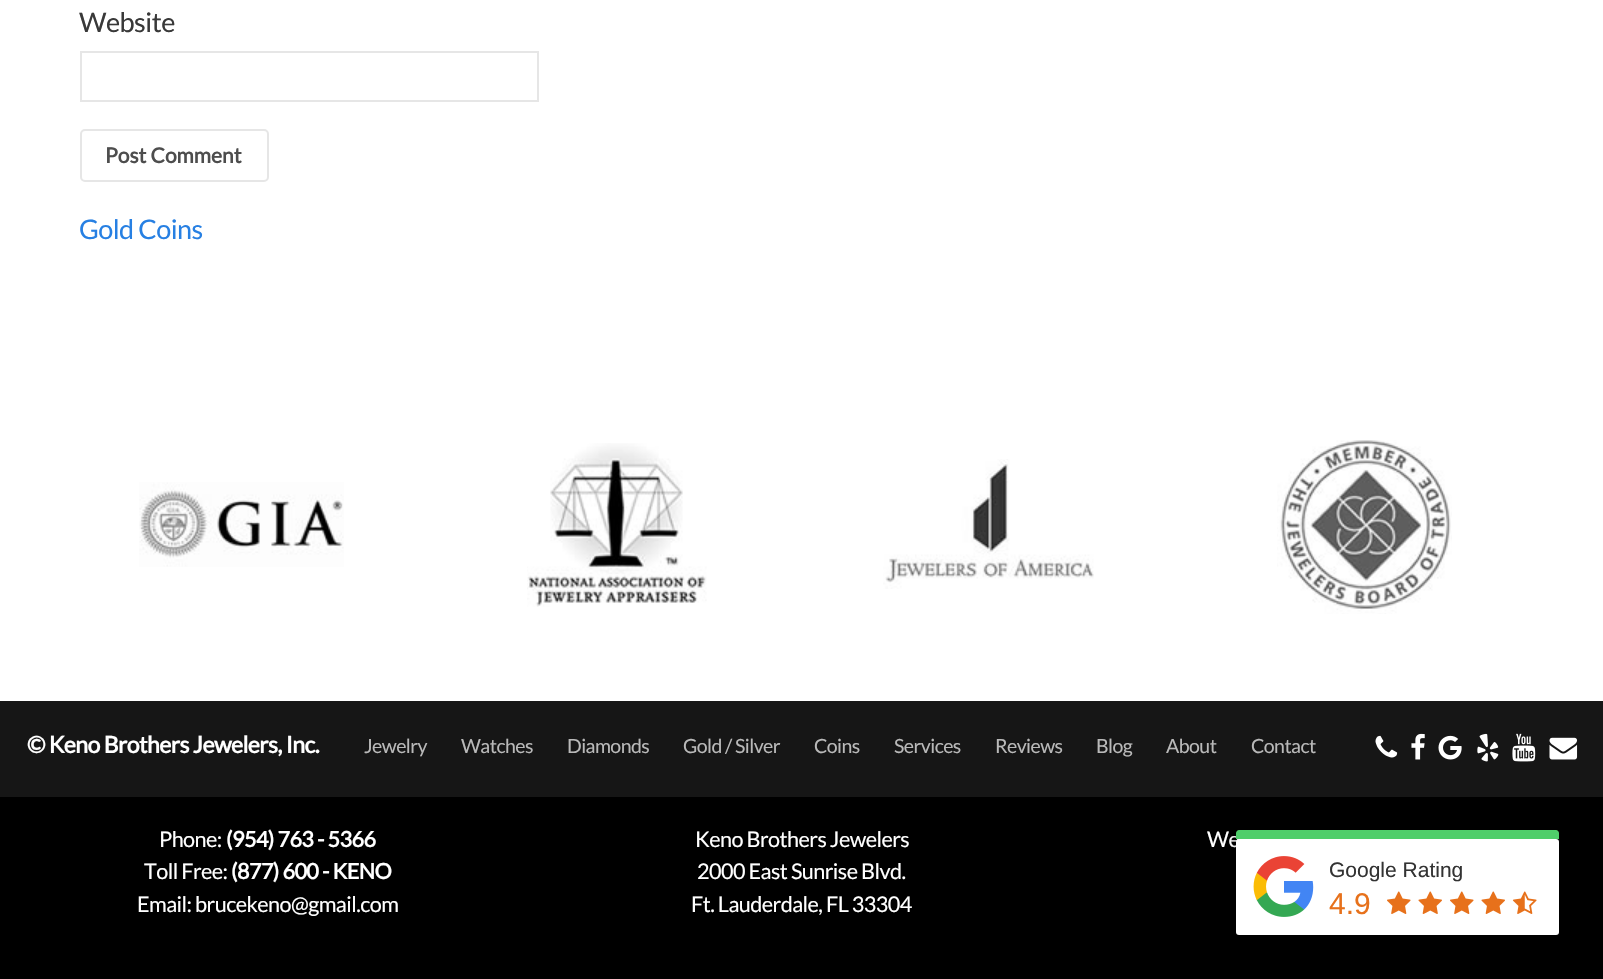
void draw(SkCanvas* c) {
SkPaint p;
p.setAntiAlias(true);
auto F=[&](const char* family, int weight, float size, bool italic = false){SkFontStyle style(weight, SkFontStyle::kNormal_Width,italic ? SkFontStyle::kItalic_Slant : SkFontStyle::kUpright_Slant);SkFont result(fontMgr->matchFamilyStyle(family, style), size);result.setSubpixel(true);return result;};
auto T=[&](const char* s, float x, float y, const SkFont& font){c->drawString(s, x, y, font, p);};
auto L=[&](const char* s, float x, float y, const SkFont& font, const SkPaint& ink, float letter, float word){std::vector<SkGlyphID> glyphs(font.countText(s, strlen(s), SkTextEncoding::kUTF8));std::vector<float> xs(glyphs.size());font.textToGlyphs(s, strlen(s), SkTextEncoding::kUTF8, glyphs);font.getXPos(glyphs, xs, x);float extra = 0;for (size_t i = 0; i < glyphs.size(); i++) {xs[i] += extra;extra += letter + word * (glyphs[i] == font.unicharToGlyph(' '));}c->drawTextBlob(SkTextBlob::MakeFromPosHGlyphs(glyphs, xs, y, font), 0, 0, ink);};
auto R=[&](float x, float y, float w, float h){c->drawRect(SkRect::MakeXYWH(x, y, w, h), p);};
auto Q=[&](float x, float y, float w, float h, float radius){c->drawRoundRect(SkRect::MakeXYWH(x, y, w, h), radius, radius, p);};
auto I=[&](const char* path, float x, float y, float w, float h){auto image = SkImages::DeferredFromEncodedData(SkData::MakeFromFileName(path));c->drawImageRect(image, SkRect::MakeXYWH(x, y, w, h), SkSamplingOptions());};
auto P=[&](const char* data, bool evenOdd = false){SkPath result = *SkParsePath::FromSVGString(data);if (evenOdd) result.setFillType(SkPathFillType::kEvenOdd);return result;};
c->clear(0xffffffff);
auto f1 = F("Lato",400,27);
p.setColor(0xff393939);
L("Website",79,32,f1,p,-.55,0);
p.setStroke(true);
p.setStrokeWidth(2);
p.setColor(0xffe6e6e6);
c->drawRect(SkRect::MakeXYWH(81,52,457,49),p);
c->drawRoundRect(SkRect::MakeXYWH(81,130,187,51),4,4,p);
auto f2 = F("Lato",700,21);
p.setStroke(false);
p.setColor(0xff4d4d4d);
T("Post Comment",105,163,f2);
p.setColor(0xff2780e3);
L("Gold Coins",79,239,f1,p,-.55,0);
p.setColor(0xff000000);
R(0,797,1603,182);
I("1.png",139,482,205,85);
I("2.png",527,443,180,164);
I("3.png",883,459,211,130);
I("4.png",1277,440,175,174);
p.setColor(0xff161616);
R(0,701,1603,96);
auto f3 = F("Lato",700,23);
p.setColor(0xffffffff);
L("© Keno Brothers Jewelers, Inc.",27,753,f3,p,-.55,0);
auto f4 = F("Lato",400,19.5);
p.setColor(0xffb9b9b9);
L("Jewelry",364,753,f4,p,-.55,0);
L("Watches",461,753,f4,p,-.55,0);
L("Diamonds",567,753,f4,p,-.55,0);
L("Gold / Silver",683,753,f4,p,-.55,0);
L("Coins",814,753,f4,p,-.55,0);
L("Services",894,753,f4,p,-.55,0);
L("Reviews",995,753,f4,p,-.55,0);
L("Blog",1096,753,f4,p,-.55,0);
L("About",1166,753,f4,p,-.55,0);
L("Contact",1251,753,f4,p,-.55,0);
I("5.png",1375,735,23,23);
I("6.png",1411,733,14,27);
I("7.png",1438,735,24,25);
I("8.png",1477,733,22,29);
I("9.png",1512,733,24,29);
I("10.png",1549,737,29,23);
auto f5 = F("Lato",400,21.6);
p.setColor(0xffffffff);
L("Phone:",159,847,f5,p,-.55,0);
auto f6 = F("Lato",700,21.6);
L("(954) 763 - 5366",226,847,f6,p,-.55,0);
L("Toll Free:",144,879,f5,p,-.55,0);
L("(877) 600 - KENO",231,879,f6,p,-.55,0);
L("Email: brucekeno@gmail.com",137,912,f5,p,-.55,0);
L("Keno Brothers Jewelers",695,847,f5,p,-.55,0);
L("2000 East Sunrise Blvd.",697,879,f5,p,-.55,0);
L("Ft. Lauderdale, FL 33304",691,912,f5,p,-.55,0);
L("We",1207,847,f5,p,-.55,0);
p.setColor(0x42000000);
p.setMaskFilter(SkMaskFilter::MakeBlur(kNormal_SkBlurStyle, 4));
c->drawRect(SkRect::MakeXYWH(1236,833,323,105),p);
p.setMaskFilter(nullptr);
p.setColor(0xff4fce6a);
c->drawPath(P("M1239 830h317c1.5 0 3 1.5 3 3v6h-323v-6c0-1.5 1.5-3 3-3z"),p);
p.setColor(0xffffffff);
Q(1236,839,323,96,3);
I("11.png",1253,856,61,61);
auto f7 = F("Liberation Sans",400,21);
p.setColor(0xff333333);
T("Google Rating",1329,877,f7);
auto f8 = F("Liberation Sans",400,30);
p.setColor(0xffe7711b);
T("4.9",1329,914,f8);
I("12.png",1387,891,24,23);
I("13.png",1418,891,24,23);
I("12.png",1450,891,24,23);
I("13.png",1481,891,24,23);
I("14.png",1512,891,25,23);
}
